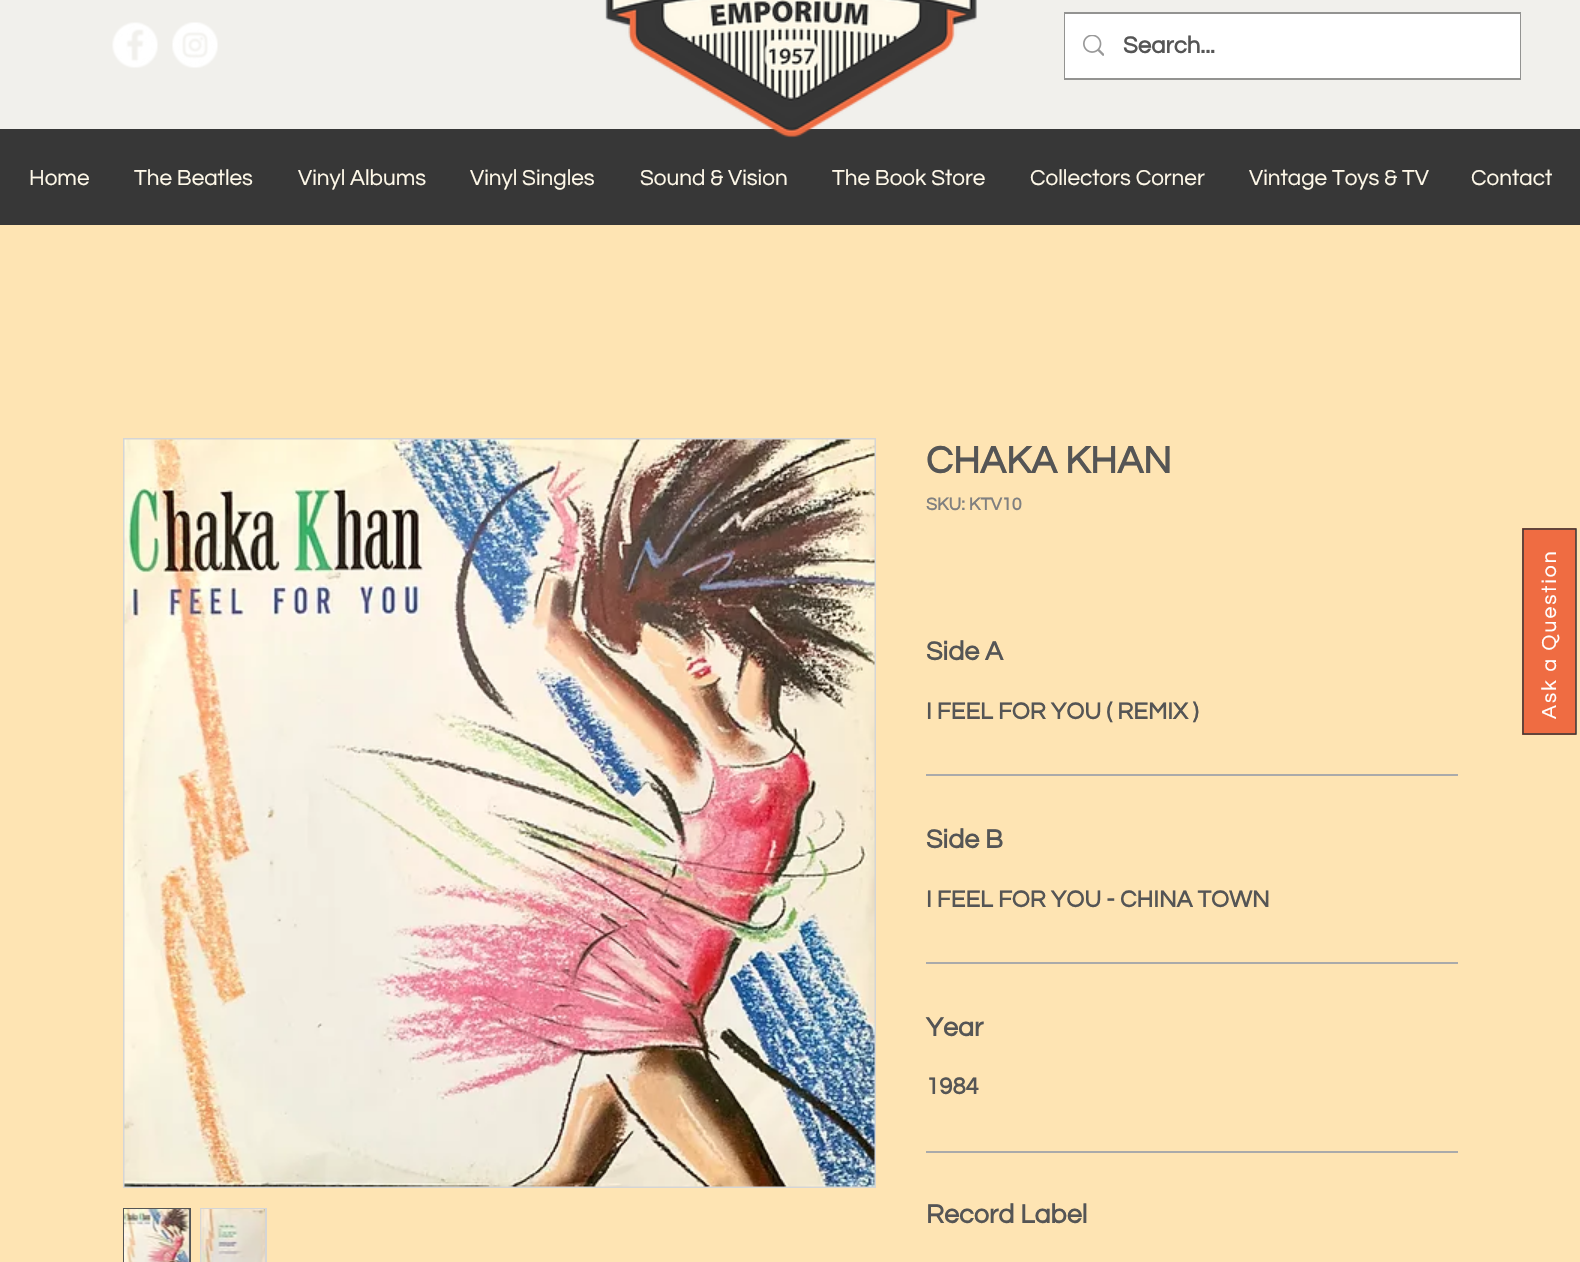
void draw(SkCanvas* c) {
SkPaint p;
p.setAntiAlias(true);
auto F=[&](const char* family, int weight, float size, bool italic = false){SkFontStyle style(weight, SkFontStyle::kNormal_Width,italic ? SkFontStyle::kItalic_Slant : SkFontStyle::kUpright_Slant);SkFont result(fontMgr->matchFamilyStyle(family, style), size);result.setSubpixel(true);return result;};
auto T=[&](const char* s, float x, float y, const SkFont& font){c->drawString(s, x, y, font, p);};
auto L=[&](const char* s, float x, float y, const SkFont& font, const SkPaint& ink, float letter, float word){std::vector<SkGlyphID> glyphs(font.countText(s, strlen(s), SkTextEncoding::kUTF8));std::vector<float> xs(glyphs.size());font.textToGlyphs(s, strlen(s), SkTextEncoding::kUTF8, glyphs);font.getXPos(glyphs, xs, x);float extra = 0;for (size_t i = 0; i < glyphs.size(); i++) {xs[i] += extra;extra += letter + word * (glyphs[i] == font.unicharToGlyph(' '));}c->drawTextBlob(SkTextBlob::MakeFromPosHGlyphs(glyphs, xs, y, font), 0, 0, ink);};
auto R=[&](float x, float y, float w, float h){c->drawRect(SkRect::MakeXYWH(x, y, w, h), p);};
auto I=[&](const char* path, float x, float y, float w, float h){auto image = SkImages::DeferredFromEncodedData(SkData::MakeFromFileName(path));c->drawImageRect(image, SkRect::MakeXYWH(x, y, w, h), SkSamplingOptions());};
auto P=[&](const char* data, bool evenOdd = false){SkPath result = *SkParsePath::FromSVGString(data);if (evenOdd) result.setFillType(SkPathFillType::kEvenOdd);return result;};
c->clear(0xfffee4b3);
p.setColor(0xfff1f0ec);
R(0,0,1580,129);
I("1.png",112,22,46,46);
I("2.png",172,22,46,46);
p.setStroke(true);
p.setStrokeWidth(2);
p.setColor(0xff939391);
c->drawRect(SkRect::MakeXYWH(1065,13,455,66),p);
p.setStroke(false);
p.setColor(0xffffffff);
R(1065,14,455,64);
I("3.png",1083,35,21,21);
auto f1 = F("Questrial",700,24);
p.setColor(0xff555555);
T("Search...",1123,53,f1);
p.setColor(0xff373737);
R(0,129,1580,96);
I("4.png",605,0,372,138);
auto f2 = F("Questrial",400,22.5);
p.setColor(0xfffff9e9);
T("Home",29,185,f2);
T("The Beatles",134,185,f2);
T("Vinyl Albums",298,185,f2);
T("Vinyl Singles",470,185,f2);
T("Sound & Vision",640,185,f2);
T("The Book Store",832,185,f2);
T("Collectors Corner",1030,185,f2);
T("Vintage Toys & TV",1249,185,f2);
T("Contact",1471,185,f2);
p.setStroke(true);
p.setColor(0xffd5d5d5);
c->drawRect(SkRect::MakeXYWH(124,439,751,748),p);
I("5.png",124,439,751,748);
p.setStroke(false);
R(188,1210,1,52);
p.setStroke(true);
p.setColor(0xff555555);
c->drawRect(SkRect::MakeXYWH(124,1209,66,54),p);
I("6.png",124,1209,66,53);
p.setStroke(false);
p.setColor(0xffd5d5d5);
R(200,1208,67,54);
I("7.png",200,1209,65,53);
auto f3 = F("Questrial",700,39);
p.setColor(0xff555555);
T("CHAKA KHAN",926,473,f3);
auto f4 = F("Questrial",700,18);
p.setColor(0xff808080);
T("SKU: KTV10",926,510,f4);
p.setColor(0xffaaaaaa);
R(926,774,532,2);
auto f5 = F("Questrial",700,27);
p.setColor(0xff555555);
T("Side A",926,660,f5);
T("I FEEL FOR YOU ( REMIX )",926,719,f1);
p.setColor(0xffaaaaaa);
R(926,962,532,2);
p.setColor(0xff555555);
T("Side B",926,848,f5);
T("I FEEL FOR YOU - CHINA TOWN",926,907,f1);
p.setColor(0xffaaaaaa);
R(926,1151,532,2);
p.setColor(0xff555555);
T("Year",926,1036,f5);
T("1984",926,1094,f1);
T("Record Label",926,1223,f5);
p.setColor(0xffef6c42);
R(1522,528,54,207);
p.setStroke(true);
p.setStrokeWidth(1.5);
p.setColor(0xff373737);
c->drawPath(P("M1523 734v-205h53v205z"),p);
auto f6 = F("Questrial",400,21);
p.setStroke(false);
p.setColor(0xffffffff);
c->save();
c->rotate(-90,1556,719);
L("Ask a Question",1556,719,f6,p,2.1,0);
c->restore();
}
